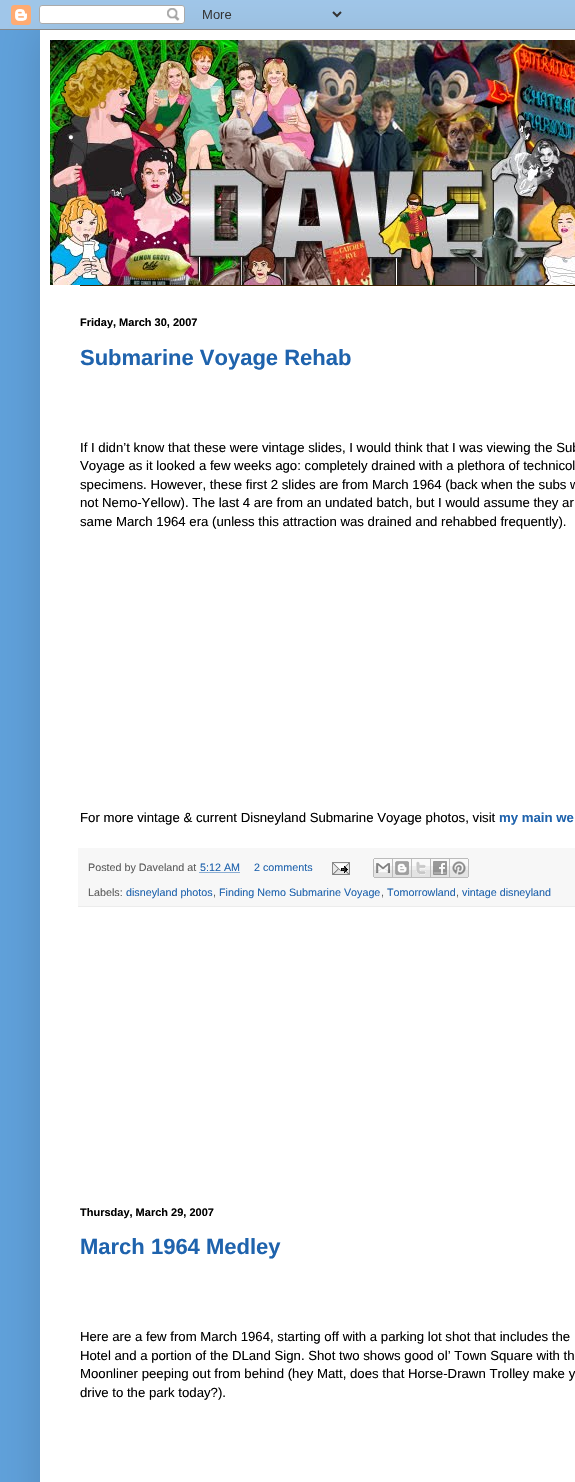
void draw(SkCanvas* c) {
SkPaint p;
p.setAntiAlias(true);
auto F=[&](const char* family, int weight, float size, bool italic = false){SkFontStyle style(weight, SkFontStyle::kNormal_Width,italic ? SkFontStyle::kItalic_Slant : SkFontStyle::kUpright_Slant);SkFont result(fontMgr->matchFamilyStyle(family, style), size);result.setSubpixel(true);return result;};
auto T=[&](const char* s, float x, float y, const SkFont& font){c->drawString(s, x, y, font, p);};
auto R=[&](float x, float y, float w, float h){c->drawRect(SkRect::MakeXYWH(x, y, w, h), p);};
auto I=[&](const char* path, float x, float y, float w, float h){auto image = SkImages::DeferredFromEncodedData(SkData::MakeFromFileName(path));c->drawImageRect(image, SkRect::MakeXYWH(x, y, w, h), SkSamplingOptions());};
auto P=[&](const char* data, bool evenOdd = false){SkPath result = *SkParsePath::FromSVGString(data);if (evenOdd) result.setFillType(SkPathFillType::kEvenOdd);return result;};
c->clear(0xff60a1db);
p.setColor(0x26000000);
p.setMaskFilter(SkMaskFilter::MakeBlur(kNormal_SkBlurStyle, 20));
c->drawRect(SkRect::MakeXYWH(40,30,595,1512),p);
p.setMaskFilter(nullptr);
I("1.png",0,0,575,30);
p.setColor(0xffffffff);
R(40,30,535,1452);
I("2.png",50,40,525,245);
p.setColor(0xff3d2201);
R(80,285,495,1);
auto f1 = F("Liberation Sans",700,11);
p.setColor(0xff000000);
T("Friday, March 30, 2007",80,326,f1);
auto f2 = F("Liberation Sans",700,22);
p.setColor(0xff1f63ad);
T("Submarine Voyage Rehab",80,365,f2);
auto f3 = F("Liberation Sans",400,13.2);
p.setColor(0xff000000);
T("If I didn’t know that these were vintage slides, I would think that I was viewing the Sub",80,452,f3);
T("Voyage as it looked a few weeks ago: completely drained with a plethora of technicol",80,470,f3);
T("specimens. However, these first 2 slides are from March 1964 (back when the subs w",80,489,f3);
T("not Nemo-Yellow). The last 4 are from an undated batch, but I would assume they ar",80,507,f3);
T("same March 1964 era (unless this attraction was drained and rehabbed frequently).",80,526,f3);
T("For more vintage & current Disneyland Submarine Voyage photos, visit",80,822,f3);
auto f4 = F("Liberation Sans",700,13.2);
p.setColor(0xff1f63ad);
T("my main we",499,822,f4);
p.setColor(0xfff7f7f7);
R(78,848,497,58);
p.setColor(0xffececec);
R(78,906,497,1);
auto f5 = F("Liberation Sans",400,10.75);
p.setColor(0xff5c5c5c);
T("Posted by Daveland at",88,871,f5);
p.setColor(0xff1f63ad);
T("5:12 AM",200,871,f5);
p.setStroke(true);
p.setStrokeWidth(1);
p.setPathEffect(SkDashPathEffect::Make({{1,1}}, 0));
c->drawPath(P("M199.5 872.5h40.5"),p);
p.setPathEffect(nullptr);
p.setStroke(false);
T("2 comments",254,871,f5);
I("3.png",332,862,18,13);
I("4.png",373,858,20,20);
I("5.png",393,858,19,20);
I("6.png",412,858,19,20);
I("7.png",431,858,19,20);
I("8.png",450,858,19,20);
p.setColor(0xff5c5c5c);
T("Labels:",88,896,f5);
p.setColor(0xff1f63ad);
T("disneyland photos",126,896,f5);
p.setColor(0xff5c5c5c);
T(",",213,896,f5);
p.setColor(0xff1f63ad);
T("Finding Nemo Submarine Voyage",219,896,f5);
p.setColor(0xff5c5c5c);
T(",",381,896,f5);
p.setColor(0xff1f63ad);
T("Tomorrowland",387,896,f5);
p.setColor(0xff5c5c5c);
T(",",456,896,f5);
p.setColor(0xff1f63ad);
T("vintage disneyland",462,896,f5);
p.setColor(0xff000000);
T("Thursday, March 29, 2007",80,1216,f1);
p.setColor(0xff1f63ad);
T("March 1964 Medley",80,1254,f2);
p.setColor(0xff000000);
T("Here are a few from March 1964, starting off with a parking lot shot that includes the",80,1341,f3);
T("Hotel and a portion of the DLand Sign. Shot two shows good ol’ Town Square with th",80,1360,f3);
T("Moonliner peeping out from behind (hey Matt, does that Horse-Drawn Trolley make y",80,1378,f3);
T("drive to the park today?).",80,1397,f3);
}
